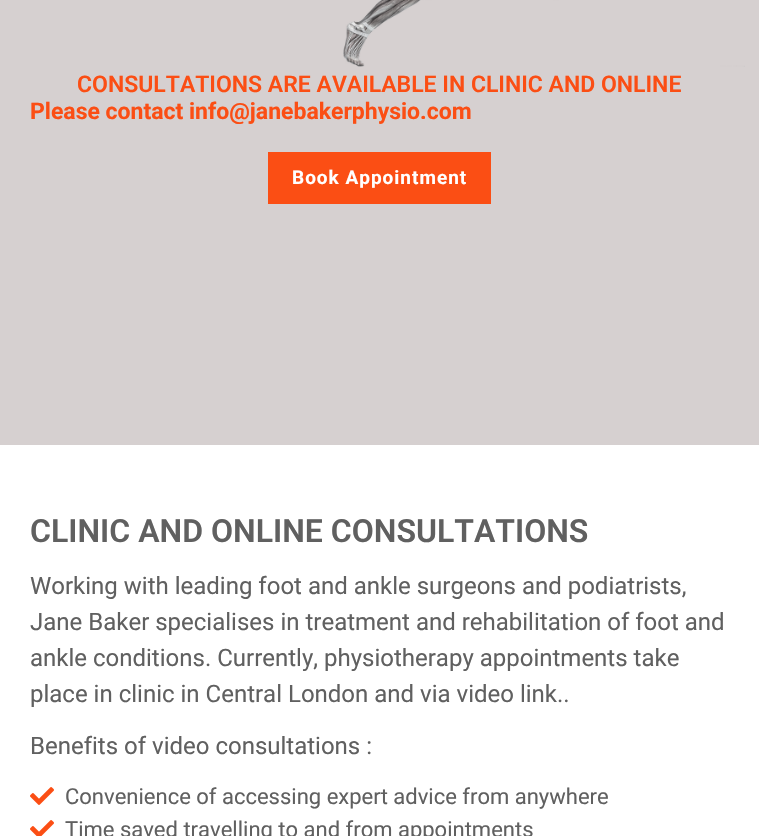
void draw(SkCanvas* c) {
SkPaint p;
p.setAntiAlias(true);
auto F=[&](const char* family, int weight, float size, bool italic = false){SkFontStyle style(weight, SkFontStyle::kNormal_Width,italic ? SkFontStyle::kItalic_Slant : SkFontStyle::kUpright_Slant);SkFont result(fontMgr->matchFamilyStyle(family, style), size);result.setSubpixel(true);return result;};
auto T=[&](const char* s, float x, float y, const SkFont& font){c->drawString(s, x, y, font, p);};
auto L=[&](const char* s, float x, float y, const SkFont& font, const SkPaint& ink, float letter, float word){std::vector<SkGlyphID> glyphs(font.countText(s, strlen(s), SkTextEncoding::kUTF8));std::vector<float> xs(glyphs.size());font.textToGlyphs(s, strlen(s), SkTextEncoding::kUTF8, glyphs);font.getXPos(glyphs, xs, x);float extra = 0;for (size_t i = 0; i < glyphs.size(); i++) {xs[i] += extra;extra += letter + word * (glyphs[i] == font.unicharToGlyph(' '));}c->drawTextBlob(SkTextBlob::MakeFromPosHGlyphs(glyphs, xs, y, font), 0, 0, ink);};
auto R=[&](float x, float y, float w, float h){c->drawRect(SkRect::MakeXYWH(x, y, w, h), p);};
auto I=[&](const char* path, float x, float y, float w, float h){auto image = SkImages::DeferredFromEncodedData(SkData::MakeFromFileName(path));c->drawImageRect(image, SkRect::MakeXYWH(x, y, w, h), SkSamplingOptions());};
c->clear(0xffffffff);
p.setColor(0xffd6d0d0);
R(0,0,759,445);
I("1.png",343,0,402,67);
auto f1 = F("Roboto",600,23);
p.setColor(0xfffb4e14);
T("CONSULTATIONS ARE AVAILABLE IN CLINIC AND ONLINE",77,92,f1);
auto f2 = F("Roboto",700,23);
T("Please contact info@janebakerphysio.com",30,119,f2);
R(268,152,223,52);
auto f3 = F("Roboto",700,19);
p.setColor(0xffffffff);
L("Book Appointment",292,184,f3,p,1,0);
auto f4 = F("Roboto",600,32);
p.setColor(0xff606060);
T("CLINIC AND ONLINE CONSULTATIONS",30,542,f4);
auto f5 = F("Roboto",400,24);
T("Working with leading foot and ankle surgeons and podiatrists,",30,594,f5);
T("Jane Baker specialises in treatment and rehabilitation of foot and",30,630,f5);
T("ankle conditions. Currently, physiotherapy appointments take",30,666,f5);
T("place in clinic in Central London and via video link..",30,702,f5);
T("Benefits of video consultations :",30,754,f5);
I("2.png",30,787,24,18);
auto f6 = F("Roboto",400,22);
T("Convenience of accessing expert advice from anywhere",65,804,f6);
I("3.png",30,820,24,16);
T("Time saved travelling to and from appointments",65,837,f6);
}
